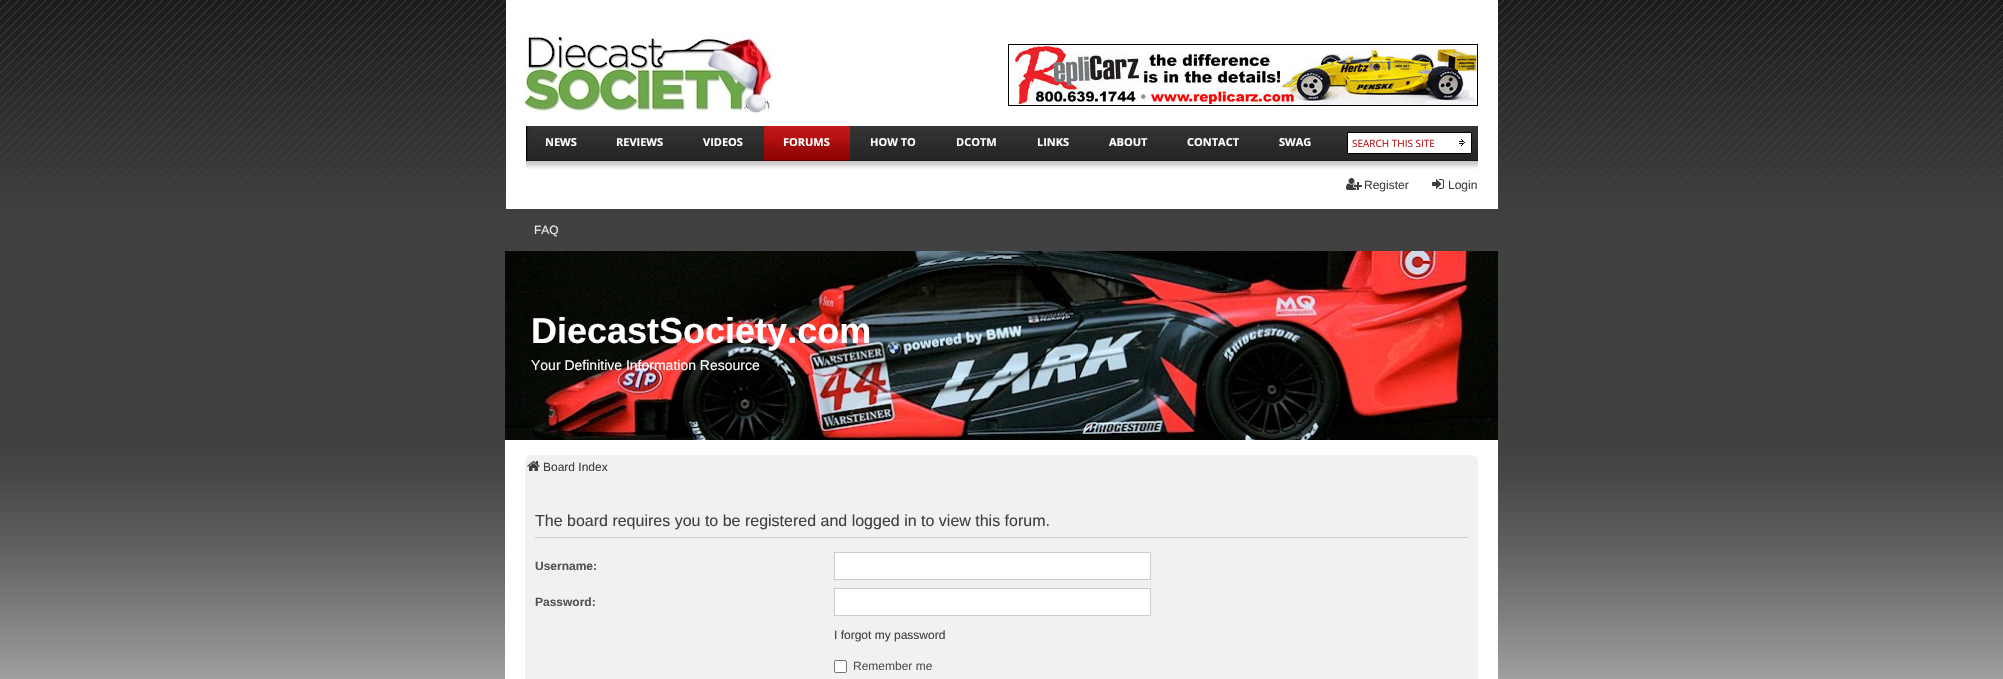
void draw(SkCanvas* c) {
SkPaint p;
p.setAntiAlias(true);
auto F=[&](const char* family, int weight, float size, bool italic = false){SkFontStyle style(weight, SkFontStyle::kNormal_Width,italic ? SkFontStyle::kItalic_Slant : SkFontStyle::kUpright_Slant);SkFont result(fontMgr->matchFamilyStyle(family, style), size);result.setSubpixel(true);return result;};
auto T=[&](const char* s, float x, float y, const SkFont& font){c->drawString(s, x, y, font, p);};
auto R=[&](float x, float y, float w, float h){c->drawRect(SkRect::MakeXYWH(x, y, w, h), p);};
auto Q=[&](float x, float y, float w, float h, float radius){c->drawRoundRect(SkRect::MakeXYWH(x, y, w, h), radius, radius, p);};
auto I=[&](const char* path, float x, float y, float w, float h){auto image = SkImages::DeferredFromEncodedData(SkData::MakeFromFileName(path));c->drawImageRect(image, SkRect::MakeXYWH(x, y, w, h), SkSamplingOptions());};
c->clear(0xffffffff);
I("1.png",0,0,2003,679);
p.setColor(0xffffffff);
R(506,0,992,209);
I("2.png",526,126,952,43);
I("3.png",523,32,250,81);
I("4.png",1008,44,470,62);
I("5.png",526,126,5,35);
auto f1 = F("Open Sans",700,11);
T("NEWS",545,146,f1);
T("REVIEWS",616,146,f1);
T("VIDEOS",703,146,f1);
I("6.png",764,126,86,35);
T("FORUMS",783,146,f1);
T("HOW TO",870,146,f1);
T("DCOTM",956,146,f1);
T("LINKS",1037,146,f1);
T("ABOUT",1109,146,f1);
T("CONTACT",1187,146,f1);
T("SWAG",1279,146,f1);
p.setStroke(true);
p.setStrokeWidth(1);
p.setColor(0xff000000);
c->drawRect(SkRect::MakeXYWH(1347.5,132.5,124,21),p);
p.setStroke(false);
p.setColor(0xffffffff);
R(1348,133,105,20);
auto f2 = F("Open Sans",400,10);
p.setColor(0xffb91415);
T("SEARCH THIS SITE",1352,147,f2);
I("7.png",1453,133,18,20);
I("8.png",1346,178,16,12);
auto f3 = F("Liberation Sans",400,12);
p.setColor(0xff3f3f3f);
T("Register",1364,189,f3);
I("9.png",1432,179,12,10);
T("Login",1448,189,f3);
p.setColor(0xffeeeeee);
T("FAQ",534,234,f3);
I("10.png",505,251,993,189);
auto f4 = F("Liberation Sans",700,36);
p.setColor(0xffffffff);
T("DiecastSociety.com",531,343,f4);
auto f5 = F("Liberation Sans",400,14);
T("Your Definitive Information Resource",531,370,f5);
R(505,440,993,239);
p.setColor(0xfff1f1f1);
Q(525,455,953,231,7);
I("11.png",527,461,13,10);
p.setColor(0xff3f3f3f);
T("Board Index",543,471,f3);
p.setColor(0xffcccccc);
R(535,537,933,1);
auto f6 = F("Liberation Sans",400,16);
p.setColor(0xff3f3f3f);
T("The board requires you to be registered and logged in to view this forum.",535,526,f6);
auto f7 = F("Liberation Sans",700,12);
p.setColor(0xff525252);
T("Username:",535,570,f7);
p.setColor(0xffffffff);
c->drawRect(SkRect::MakeXYWH(834.5,552.5,316,27),p);
p.setStroke(true);
p.setColor(0xffcccccc);
c->drawRect(SkRect::MakeXYWH(834.5,552.5,316,27),p);
p.setStroke(false);
p.setColor(0xff525252);
T("Password:",535,606,f7);
p.setColor(0xffffffff);
c->drawRect(SkRect::MakeXYWH(834.5,588.5,316,27),p);
p.setStroke(true);
p.setColor(0xffcccccc);
c->drawRect(SkRect::MakeXYWH(834.5,588.5,316,27),p);
p.setStroke(false);
p.setColor(0xff3f3f3f);
T("I forgot my password",834,639,f3);
p.setColor(0xffffffff);
c->drawRoundRect(SkRect::MakeXYWH(834.5,660.5,12,12),1.5,1.5,p);
p.setStroke(true);
p.setColor(0xff767676);
c->drawRoundRect(SkRect::MakeXYWH(834.5,660.5,12,12),1.5,1.5,p);
p.setStroke(false);
p.setColor(0xff525252);
T("Remember me",853,670,f3);
}
